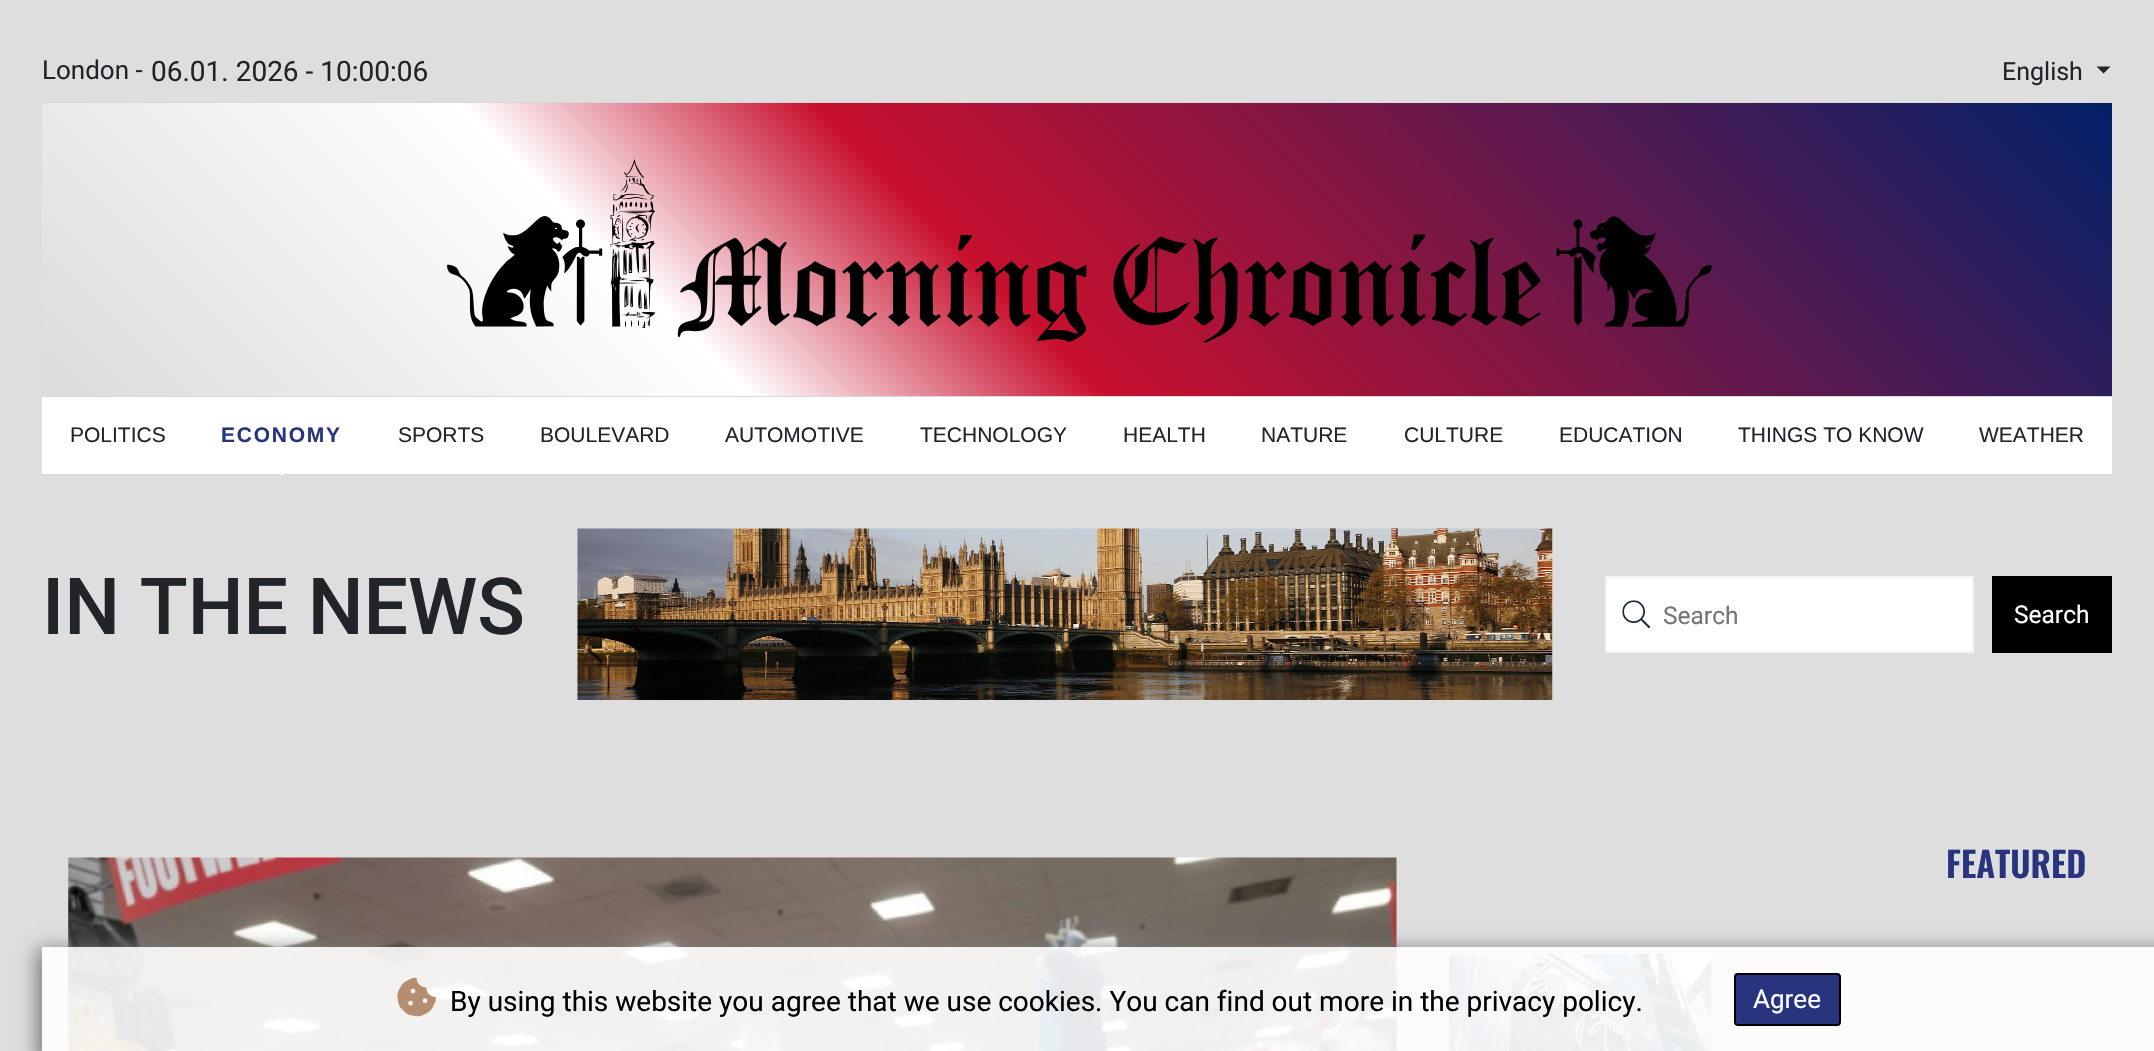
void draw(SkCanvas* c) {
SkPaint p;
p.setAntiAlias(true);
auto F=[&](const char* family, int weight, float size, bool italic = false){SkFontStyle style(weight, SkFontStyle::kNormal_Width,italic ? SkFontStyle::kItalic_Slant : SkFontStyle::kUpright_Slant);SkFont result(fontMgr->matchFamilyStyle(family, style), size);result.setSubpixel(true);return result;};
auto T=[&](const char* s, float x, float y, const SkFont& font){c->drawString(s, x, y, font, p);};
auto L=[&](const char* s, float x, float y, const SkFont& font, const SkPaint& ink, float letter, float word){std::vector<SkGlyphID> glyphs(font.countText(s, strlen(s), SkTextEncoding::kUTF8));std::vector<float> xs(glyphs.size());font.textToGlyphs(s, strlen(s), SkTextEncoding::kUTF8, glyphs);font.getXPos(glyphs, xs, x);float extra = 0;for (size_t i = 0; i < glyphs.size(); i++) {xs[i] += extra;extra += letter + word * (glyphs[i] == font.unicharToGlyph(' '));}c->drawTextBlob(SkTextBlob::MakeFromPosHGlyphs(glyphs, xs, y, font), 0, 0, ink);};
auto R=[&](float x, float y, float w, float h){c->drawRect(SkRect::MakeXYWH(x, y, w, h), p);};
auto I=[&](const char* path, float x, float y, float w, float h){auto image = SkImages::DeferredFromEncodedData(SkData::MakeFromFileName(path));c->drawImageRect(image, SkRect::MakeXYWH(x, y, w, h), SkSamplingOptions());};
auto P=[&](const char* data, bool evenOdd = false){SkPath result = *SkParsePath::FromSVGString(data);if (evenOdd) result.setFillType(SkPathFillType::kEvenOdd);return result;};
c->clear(0xffdedede);
p.setColor(0xffd9d9d9);
R(42,396,2070,1);
R(42,102,2070,1);
auto f1 = F("Roboto",400,26);
p.setColor(0xff212529);
T("London -",42,79,f1);
auto f2 = F("Roboto",400,28);
T("06.01. 2026 - 10:00:06",151,81,f2);
auto f3 = F("Roboto",400,25);
T("English",2002,80,f3);
c->drawPath(P("M2096.5 66.5h14l-7 7z"),p);
{
const SkColor colors[] = {0xffdcdadb,0xffffffff,0xffc8102e,0xff012169};
const float stops[] = {0,.3,.45,1};
const SkPoint ends[] = {{487,840}, {1668,-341}};
p.setShader(SkGradientShader::MakeLinear(ends, colors, stops, 4, SkTileMode::kClamp));
p.setAlpha(255);
}
R(42,103,2070,293);
I("1.png",447,159,1265,184);
p.setShader(nullptr);
p.setColor(0xffffffff);
R(42,397,2070,77);
p.setColor(0xffd9d9d9);
R(42,474,2070,2);
auto f4 = F("Liberation Sans",400,21);
p.setColor(0xff212529);
T("POLITICS",70,442,f4);
auto f5 = F("Liberation Sans",700,21);
p.setColor(0xff28357e);
L("ECONOMY",221,442,f5,p,1.75,0);
p.setColor(0xffffffff);
c->drawPath(P("M264 455h37l-19 21z"),p);
p.setColor(0xff212529);
T("SPORTS",398,442,f4);
T("BOULEVARD",540,442,f4);
T("AUTOMOTIVE",725,442,f4);
T("TECHNOLOGY",920,442,f4);
T("HEALTH",1123,442,f4);
T("NATURE",1261,442,f4);
T("CULTURE",1404,442,f4);
T("EDUCATION",1559,442,f4);
T("THINGS TO KNOW",1738,442,f4);
T("WEATHER",1979,442,f4);
auto f6 = F("Roboto",500,78.75);
T("IN THE NEWS",42,634,f6);
I("2.png",577,528,976,172);
p.setColor(0xffffffff);
c->drawRect(SkRect::MakeXYWH(1606,577,367,75),p);
p.setStroke(true);
p.setStrokeWidth(2);
p.setColor(0xfff2f4f7);
c->drawRect(SkRect::MakeXYWH(1606,577,367,75),p);
I("3.png",1622,600,28,28);
auto f7 = F("Roboto",400,24.5);
p.setStroke(false);
p.setColor(0xff757575);
T("Search",1663,624,f7);
p.setColor(0xff000000);
R(1992,576,120,77);
p.setColor(0xffffffff);
T("Search",2014,623,f7);
I("4.png",68,857,1329,194);
auto f8 = F("Oswald",600,35);
p.setColor(0xff28357e);
T("FEATURED",1946,878,f8);
I("5.png",1449,953,263,98);
c->save();
c->clipPath(P("M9 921h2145v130h-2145zm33 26h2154v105h-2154z",true),true);
p.setColor(0xff797979);
p.setMaskFilter(SkMaskFilter::MakeBlur(kNormal_SkBlurStyle, 9));
c->drawRect(SkRect::MakeXYWH(37,949,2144,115),p);
p.setMaskFilter(nullptr);
c->restore();
p.setColor(0xe6ffffff);
R(42,947,2112,104);
I("6.png",397,977,39,40);
p.setColor(0xff000000);
T("By using this website you agree that we use cookies. You can find out more in the privacy policy.",450,1011,f2);
p.setColor(0xff28357e);
c->drawRoundRect(SkRect::MakeXYWH(1735,974,105,51),3,3,p);
p.setStroke(true);
p.setColor(0xff000000);
c->drawRoundRect(SkRect::MakeXYWH(1735,974,105,51),3,3,p);
p.setStroke(false);
p.setColor(0xffffffff);
T("Agree",1753,1008,f1);
}
